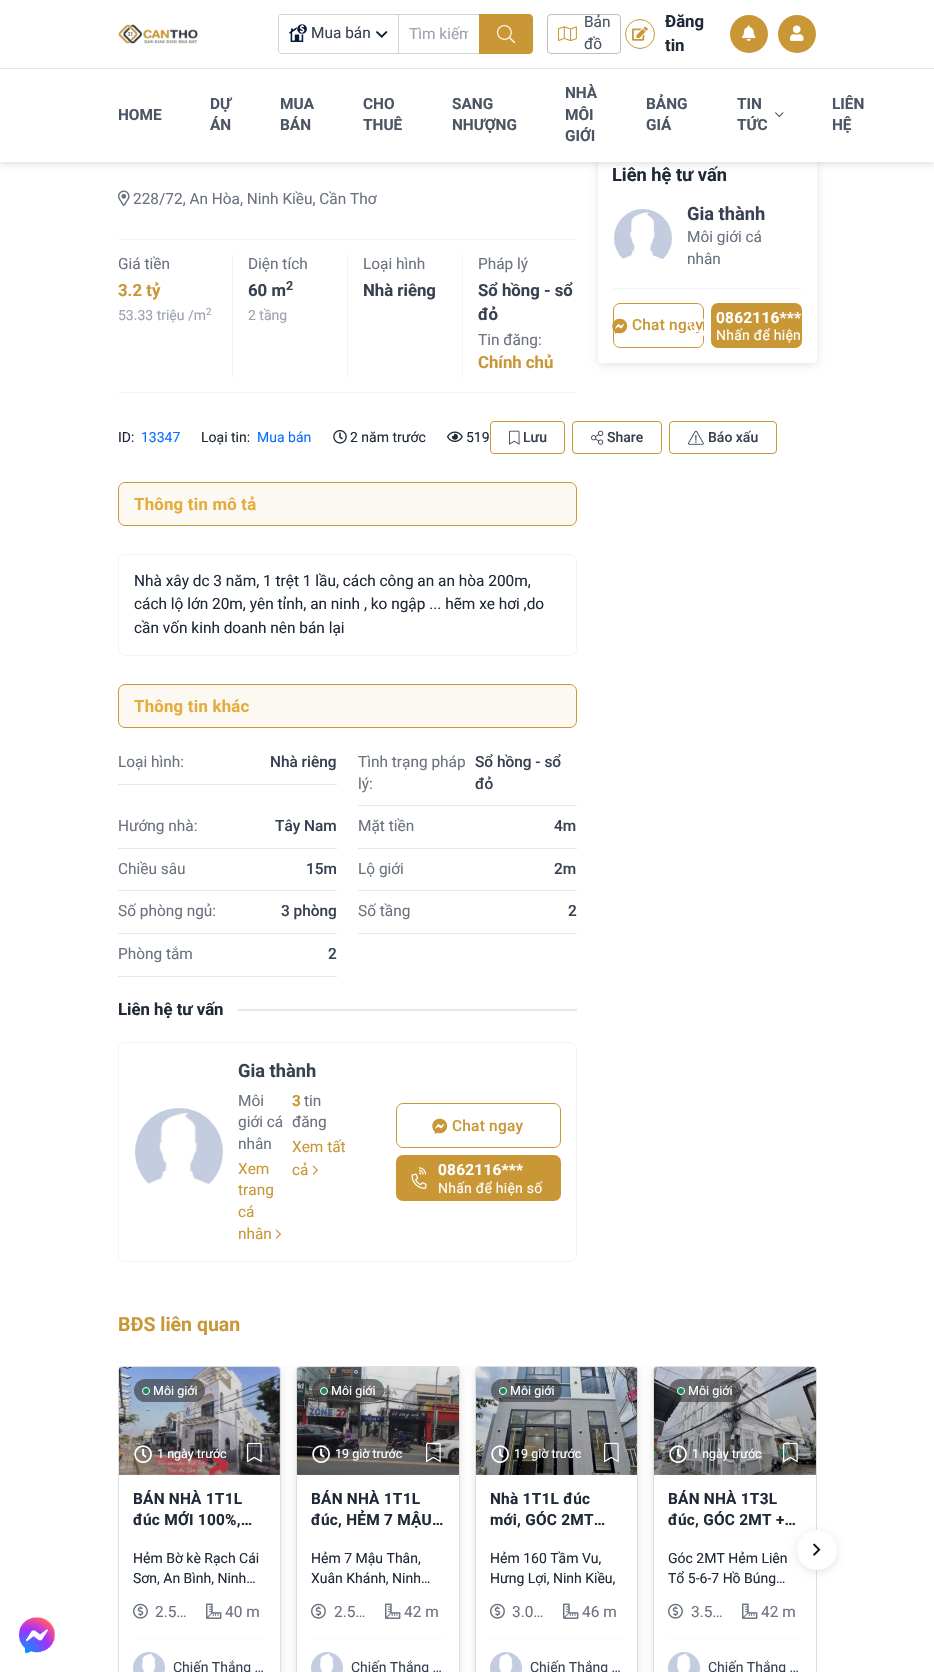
void draw(SkCanvas* c) {
SkPaint p;
p.setAntiAlias(true);
auto F=[&](const char* family, int weight, float size, bool italic = false){SkFontStyle style(weight, SkFontStyle::kNormal_Width,italic ? SkFontStyle::kItalic_Slant : SkFontStyle::kUpright_Slant);SkFont result(fontMgr->matchFamilyStyle(family, style), size);result.setSubpixel(true);return result;};
auto T=[&](const char* s, float x, float y, const SkFont& font){c->drawString(s, x, y, font, p);};
auto L=[&](const char* s, float x, float y, const SkFont& font, const SkPaint& ink, float letter, float word){std::vector<SkGlyphID> glyphs(font.countText(s, strlen(s), SkTextEncoding::kUTF8));std::vector<float> xs(glyphs.size());font.textToGlyphs(s, strlen(s), SkTextEncoding::kUTF8, glyphs);font.getXPos(glyphs, xs, x);float extra = 0;for (size_t i = 0; i < glyphs.size(); i++) {xs[i] += extra;extra += letter + word * (glyphs[i] == font.unicharToGlyph(' '));}c->drawTextBlob(SkTextBlob::MakeFromPosHGlyphs(glyphs, xs, y, font), 0, 0, ink);};
auto R=[&](float x, float y, float w, float h){c->drawRect(SkRect::MakeXYWH(x, y, w, h), p);};
auto Q=[&](float x, float y, float w, float h, float radius){c->drawRoundRect(SkRect::MakeXYWH(x, y, w, h), radius, radius, p);};
auto I=[&](const char* path, float x, float y, float w, float h){auto image = SkImages::DeferredFromEncodedData(SkData::MakeFromFileName(path));c->drawImageRect(image, SkRect::MakeXYWH(x, y, w, h), SkSamplingOptions());};
auto P=[&](const char* data, bool evenOdd = false){SkPath result = *SkParsePath::FromSVGString(data);if (evenOdd) result.setFillType(SkPathFillType::kEvenOdd);return result;};
c->clear(0xffffffff);
p.setColor(0x1a000000);
p.setMaskFilter(SkMaskFilter::MakeBlur(kNormal_SkBlurStyle, 4));
c->drawRoundRect(SkRect::MakeXYWH(598,150,219,215),4,4,p);
p.setMaskFilter(nullptr);
p.setColor(0xffffffff);
Q(598,148,219,215,4);
p.setColor(0x1a000000);
p.setMaskFilter(SkMaskFilter::MakeBlur(kNormal_SkBlurStyle, 2.5));
c->drawRect(SkRect::MakeXYWH(0,3,934,162),p);
p.setMaskFilter(nullptr);
p.setColor(0xffffffff);
R(0,0,934,162);
I("1.png",118,24,80,20);
p.setColor(0xffced4da);
c->drawPath(P("M282 14h116v40h-116c-2 0-4-2-4-4v-32c0-2 2-4 4-4zm0 1h116v38h-116c-2 0-3-1-3-3v-32c0-2 1-3 3-3z",true),p);
I("2.png",289,24,18,18);
auto f1 = F("Roboto",400,15.4);
p.setColor(0xff374151);
T("Mua bán",311,38,f1);
I("3.png",376,31,12,7);
p.setColor(0xffced4da);
R(398,14,81,1);
R(398,53,81,1);
R(398,14,1,40);
c->save();
c->clipRect(SkRect::MakeXYWH(409,25,59,18));
p.setColor(0xff9ca3af);
T("Tìm kiếm",409,39,f1);
c->restore();
p.setColor(0xffc99736);
c->drawPath(P("M479 14h50c2 0 4 2 4 4v32c0 2-2 4-4 4h-50z"),p);
I("4.png",497,25,19,19);
p.setStroke(true);
p.setStrokeWidth(1);
p.setColor(0xffbfbfbf);
c->drawRoundRect(SkRect::MakeXYWH(547.5,14.5,73,39),3.5,3.5,p);
p.setStroke(false);
p.setColor(0xff4b5563);
T("Bản",584,27,f1);
I("5.png",558,26,19,15);
T("đồ",584,49,f1);
p.setStroke(true);
p.setColor(0xffc99736);
c->drawCircle(640,34,14.5,p);
I("6.png",632,26,16,15);
auto f2 = F("Roboto",700,16.75);
p.setStroke(false);
p.setColor(0xff1f2937);
T("Đăng",665,27,f2);
T("tin",665,51,f2);
p.setColor(0xffc99736);
c->drawCircle(749,34,19,p);
I("7.png",742,25,14,16);
c->drawCircle(797,34,19,p);
I("8.png",790,25,14,16);
p.setColor(0xffe5e7eb);
R(0,68,934,1);
auto f3 = F("Roboto",700,15.4);
p.setColor(0xff4b5563);
T("HOME",118,120,f3);
T("DỰ",210,109,f3);
T("ÁN",210,130,f3);
T("MUA",280,109,f3);
T("BÁN",280,130,f3);
T("CHO",363,109,f3);
T("THUÊ",363,130,f3);
T("SANG",452,109,f3);
T("NHƯỢNG",452,130,f3);
T("NHÀ",565,98,f3);
T("MÔI",565,120,f3);
T("GIỚI",565,141,f3);
T("BẢNG",646,109,f3);
T("GIÁ",646,130,f3);
T("TIN",737,109,f3);
I("9.png",775,112,9,6);
T("TỨC",737,130,f3);
T("LIÊN",832,109,f3);
T("HỆ",832,130,f3);
I("10.png",19,1617,36,36);
auto f4 = F("Roboto",700,18.25);
p.setColor(0xff1f2937);
T("Liên hệ tư vấn",612,181,f4);
I("11.png",614,209,58,50);
p.setColor(0xff374151);
T("Gia thành",687,220,f4);
p.setColor(0xff6b7280);
T("Môi giới cá",687,242,f1);
T("nhân",687,264,f1);
p.setColor(0xfff3f4f6);
R(613,288,189,1);
p.setStroke(true);
p.setColor(0xffc99736);
c->drawRoundRect(SkRect::MakeXYWH(613.5,303.5,90,44),6.5,6.5,p);
I("12.png",612,318,16,16);
auto f5 = F("Roboto",500,15.4);
p.setStroke(false);
L("Chat ngay",632,330,f5,p,.25,0);
Q(711,303,91,45,7);
I("13.png",689,318,15,18);
p.setColor(0xffffffff);
L("0862116***",716,323,f3,p,.25,0);
auto f6 = F("Roboto",400,14);
L("Nhấn để hiện",716,340,f6,p,.25,0);
I("14.png",118,190,12,16);
p.setColor(0xff6b7280);
T("228/72, An Hòa, Ninh Kiều, Cần Thơ",133,204,f1);
p.setColor(0xfff3f4f6);
R(118,239,459,1);
R(118,392,459,1);
p.setColor(0xff6b7280);
T("Giá tiền",118,269,f1);
p.setColor(0xffc99736);
T("3.2 tỷ",118,296,f2);
p.setColor(0xff9ca3af);
T("53.33 triệu /m",118,320,f6);
auto f7 = F("Roboto",400,10);
T("2",206,315,f7);
p.setColor(0xfff3f4f6);
R(232,254,1,124);
p.setColor(0xff6b7280);
T("Diện tích",248,269,f1);
p.setColor(0xff374151);
T("60 m",248,296,f2);
auto f8 = F("Roboto",700,12.5);
T("2",286,290,f8);
p.setColor(0xff9ca3af);
T("2 tầng",248,320,f6);
p.setColor(0xfff3f4f6);
R(347,254,1,124);
p.setColor(0xff6b7280);
T("Loại hình",363,269,f1);
p.setColor(0xff374151);
T("Nhà riêng",363,296,f2);
p.setColor(0xfff3f4f6);
R(462,254,1,124);
p.setColor(0xff6b7280);
T("Pháp lý",478,269,f1);
p.setColor(0xff374151);
T("Sổ hồng - sổ",478,296,f2);
T("đỏ",478,320,f2);
p.setColor(0xff6b7280);
T("Tin đăng:",478,345,f1);
p.setColor(0xffc99736);
T("Chính chủ",478,368,f2);
p.setColor(0xff1f2937);
T("ID:",118,442,f6);
p.setColor(0xff0d6efd);
T("13347",141,442,f6);
p.setColor(0xff1f2937);
T("Loại tin:",201,442,f6);
p.setColor(0xff0d6efd);
T("Mua bán",257,442,f6);
I("15.png",333,430,14,14);
p.setColor(0xff1f2937);
T("2 năm trước",350,442,f6);
I("16.png",447,431,16,11);
T("519",466,442,f6);
p.setStroke(true);
p.setColor(0xffc99736);
c->drawRoundRect(SkRect::MakeXYWH(490.5,421.5,74,32),3.5,3.5,p);
I("17.png",509,430,11,15);
auto f9 = F("Roboto",500,14);
p.setStroke(false);
p.setColor(0xff374151);
T("Lưu",523,442,f9);
p.setStroke(true);
p.setColor(0xffc99736);
c->drawRoundRect(SkRect::MakeXYWH(572.5,421.5,89,32),3.5,3.5,p);
I("18.png",591,430,13,15);
p.setStroke(false);
p.setColor(0xff374151);
T("Share",607,442,f9);
p.setStroke(true);
p.setColor(0xffc99736);
c->drawRoundRect(SkRect::MakeXYWH(669.5,421.5,107,32),3.5,3.5,p);
I("19.png",688,430,16,15);
p.setStroke(false);
p.setColor(0xff374151);
T("Báo xấu",708,442,f9);
p.setColor(0xfffcf9f3);
c->drawRoundRect(SkRect::MakeXYWH(118.5,482.5,458,43),6.5,6.5,p);
p.setStroke(true);
p.setColor(0xffc99736);
c->drawRoundRect(SkRect::MakeXYWH(118.5,482.5,458,43),6.5,6.5,p);
p.setStroke(false);
p.setColor(0xffe5ab3c);
L("Thông tin mô tả",134,510,f2,p,.25,0);
p.setStroke(true);
p.setColor(0xfff3f4f6);
c->drawRoundRect(SkRect::MakeXYWH(118.5,554.5,458,101),6.5,6.5,p);
p.setStroke(false);
p.setColor(0xff1f2937);
T("Nhà xây dc 3 năm, 1 trệt 1 lầu, cách công an an hòa 200m,",134,586,f1);
T("cách lộ lớn 20m, yên tỉnh, an ninh , ko ngập ... hẽm xe hơi ,do",134,609,f1);
T("cần vốn kinh doanh nên bán lại",134,633,f1);
p.setColor(0xfffcf9f3);
c->drawRoundRect(SkRect::MakeXYWH(118.5,684.5,458,43),6.5,6.5,p);
p.setStroke(true);
p.setColor(0xffc99736);
c->drawRoundRect(SkRect::MakeXYWH(118.5,684.5,458,43),6.5,6.5,p);
p.setStroke(false);
p.setColor(0xffe5ab3c);
L("Thông tin khác",134,712,f2,p,.25,0);
p.setColor(0xffe5e7eb);
R(118,784,219,1);
p.setColor(0xff6b7280);
T("Loại hình:",118,767,f1);
p.setColor(0xff374151);
T("Nhà riêng",270,767,f5);
p.setColor(0xffe5e7eb);
R(358,805,219,1);
p.setColor(0xff6b7280);
T("Tình trạng pháp",358,767,f1);
T("lý:",358,789,f1);
p.setColor(0xff374151);
T("Sổ hồng - sổ",475,767,f5);
T("đỏ",475,789,f5);
p.setColor(0xffe5e7eb);
R(118,848,219,1);
p.setColor(0xff6b7280);
T("Hướng nhà:",118,831,f1);
p.setColor(0xff374151);
T("Tây Nam",275,831,f5);
p.setColor(0xffe5e7eb);
R(358,848,219,1);
p.setColor(0xff6b7280);
T("Mặt tiền",358,831,f1);
p.setColor(0xff374151);
T("4m",554,831,f5);
p.setColor(0xffe5e7eb);
R(118,890,219,1);
p.setColor(0xff6b7280);
T("Chiều sâu",118,874,f1);
p.setColor(0xff374151);
T("15m",306,874,f5);
p.setColor(0xffe5e7eb);
R(358,890,219,1);
p.setColor(0xff6b7280);
T("Lộ giới",358,874,f1);
p.setColor(0xff374151);
T("2m",554,874,f5);
p.setColor(0xffe5e7eb);
R(118,933,219,1);
p.setColor(0xff6b7280);
T("Số phòng ngủ:",118,916,f1);
p.setColor(0xff374151);
T("3 phòng",281,916,f5);
p.setColor(0xffe5e7eb);
R(358,933,219,1);
p.setColor(0xff6b7280);
T("Số tầng",358,916,f1);
p.setColor(0xff374151);
T("2",568,916,f5);
p.setColor(0xffe5e7eb);
R(118,976,219,1);
p.setColor(0xff6b7280);
T("Phòng tắm",118,959,f1);
p.setColor(0xff374151);
T("2",328,959,f5);
p.setColor(0xff1f2937);
T("Liên hệ tư vấn",118,1015,f2);
p.setColor(0xffe5e7eb);
R(238,1009,339,2);
p.setStroke(true);
p.setColor(0xfff3f4f6);
c->drawRoundRect(SkRect::MakeXYWH(118.5,1042.5,458,219),6.5,6.5,p);
I("20.png",135,1108,88,77);
p.setStroke(false);
p.setColor(0xff374151);
T("Gia thành",238,1077,f4);
p.setColor(0xff6b7280);
T("Môi",238,1106,f1);
T("giới cá",238,1127,f1);
T("nhân",238,1149,f1);
p.setColor(0xffc99736);
T("Xem",238,1174,f1);
T("trang",238,1195,f1);
T("cá",238,1217,f1);
T("nhân",238,1239,f1);
I("21.png",275,1229,6,10);
T("3",292,1106,f3);
p.setColor(0xff6b7280);
T("tin",304,1106,f1);
T("đăng",292,1127,f1);
p.setColor(0xffc99736);
T("Xem tất",292,1152,f1);
T("cả",292,1175,f1);
I("21.png",312,1165,6,10);
p.setStroke(true);
c->drawRoundRect(SkRect::MakeXYWH(396.5,1103.5,164,44),6.5,6.5,p);
I("22.png",432,1118,16,16);
p.setStroke(false);
L("Chat ngay",452,1131,f5,p,.25,0);
Q(396,1155,165,46,7);
I("23.png",411,1167,16,22);
p.setColor(0xffffffff);
L("0862116***",438,1175,f3,p,.25,0);
L("Nhấn để hiện số",438,1193,f6,p,.25,0);
auto f10 = F("Roboto",700,19.5);
p.setColor(0xffc99736);
T("BĐS liên quan",118,1331,f10);
c->save();
c->clipRect(SkRect::MakeXYWH(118,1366,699,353));
p.setColor(0x1a000000);
p.setMaskFilter(SkMaskFilter::MakeBlur(kNormal_SkBlurStyle, 4));
c->drawRoundRect(SkRect::MakeXYWH(118,1368,163,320),4,4,p);
p.setMaskFilter(nullptr);
c->restore();
p.setColor(0xffffffff);
c->drawRoundRect(SkRect::MakeXYWH(118.5,1366.5,162,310),3.5,3.5,p);
p.setStroke(true);
p.setColor(0xffdfdfdf);
c->drawRoundRect(SkRect::MakeXYWH(118.5,1366.5,162,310),3.5,3.5,p);
p.setStroke(false);
p.setColor(0xffffffff);
c->drawPath(P("M122 1367h155c1.5 0 3 1.5 3 3v105h-161v-105c0-1.5 1.5-3 3-3z"),p);
I("24.png",119,1367,161,108);
{
const SkColor colors[] = {0x00000000,0x4d000000};
const float stops[] = {0,1};
const SkPoint ends[] = {{200,1295}, {200,1475}};
p.setShader(SkGradientShader::MakeLinear(ends, colors, stops, 2, SkTileMode::kClamp));
p.setAlpha(255);
}
c->drawPath(P("M122 1367h155c1.5 0 3 1.5 3 3v105h-161v-105c0-1.5 1.5-3 3-3z"),p);
p.setShader(nullptr);
p.setColor(0x99343434);
Q(134,1379,71,23,11.5);
p.setColor(0xff198754);
c->drawCircle(146,1391,3.5,p);
p.setStroke(true);
p.setColor(0xffffffff);
c->drawCircle(146,1391,3.5,p);
auto f11 = F("Roboto",400,12.5);
p.setStroke(false);
T("Môi giới",153,1395,f11);
I("25.png",134,1445,18,18);
T("1 ngày trước",157,1458,f11);
I("26.png",247,1442,15,21);
p.setColor(0xff1f2937);
L("BÁN NHÀ 1T1L",133,1504,f3,p,.25,0);
L("đúc MỚI 100%,…",133,1525,f3,p,.25,0);
T("Hẻm Bờ kè Rạch Cái",133,1563,f6);
T("Sơn, An Bình, Ninh…",133,1583,f6);
I("27.png",133,1603,15,16);
p.setColor(0xff6b7280);
T("2.5…",155,1617,f1);
I("28.png",206,1603,16,16);
T("40 m",225,1617,f1);
p.setColor(0xfff9f9f9);
R(133,1638,133,1);
I("29.png",133,1652,32,20);
p.setColor(0xff374151);
T("Chiến Thắng …",173,1672,f6);
c->save();
c->clipRect(SkRect::MakeXYWH(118,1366,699,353));
p.setColor(0x1a000000);
p.setMaskFilter(SkMaskFilter::MakeBlur(kNormal_SkBlurStyle, 4));
c->drawRoundRect(SkRect::MakeXYWH(296,1368,164,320),4,4,p);
p.setMaskFilter(nullptr);
c->restore();
p.setColor(0xffffffff);
c->drawRoundRect(SkRect::MakeXYWH(296.5,1366.5,163,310),3.5,3.5,p);
p.setStroke(true);
p.setColor(0xffdfdfdf);
c->drawRoundRect(SkRect::MakeXYWH(296.5,1366.5,163,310),3.5,3.5,p);
I("30.png",297,1367,162,108);
p.setStroke(false);
{
const SkColor colors[] = {0x00000000,0x4d000000};
const float stops[] = {0,1};
const SkPoint ends[] = {{378,1295}, {378,1475}};
p.setShader(SkGradientShader::MakeLinear(ends, colors, stops, 2, SkTileMode::kClamp));
p.setAlpha(255);
}
c->drawPath(P("M300 1367h156c1.5 0 3 1.5 3 3v105h-162v-105c0-1.5 1.5-3 3-3z"),p);
p.setShader(nullptr);
p.setColor(0x99343434);
Q(312,1379,72,23,11.5);
p.setColor(0xff198754);
c->drawCircle(324,1391,3.5,p);
p.setStroke(true);
p.setColor(0xffffffff);
c->drawCircle(324,1391,3.5,p);
p.setStroke(false);
T("Môi giới",331,1395,f11);
I("31.png",312,1445,18,18);
T("19 giờ trước",335,1458,f11);
I("32.png",426,1442,15,21);
p.setColor(0xff1f2937);
L("BÁN NHÀ 1T1L",311,1504,f3,p,.25,0);
L("đúc, HẺM 7 MẬU…",311,1525,f3,p,.25,0);
T("Hẻm 7 Mậu Thân,",311,1563,f6);
T("Xuân Khánh, Ninh…",311,1583,f6);
I("27.png",311,1603,15,16);
p.setColor(0xff6b7280);
T("2.5…",334,1617,f1);
I("28.png",385,1603,16,16);
T("42 m",404,1617,f1);
p.setColor(0xfff9f9f9);
R(311,1638,134,1);
I("29.png",311,1652,32,20);
p.setColor(0xff374151);
T("Chiến Thắng …",351,1672,f6);
c->save();
c->clipRect(SkRect::MakeXYWH(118,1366,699,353));
p.setColor(0x1a000000);
p.setMaskFilter(SkMaskFilter::MakeBlur(kNormal_SkBlurStyle, 4));
c->drawRoundRect(SkRect::MakeXYWH(475,1368,163,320),4,4,p);
p.setMaskFilter(nullptr);
c->restore();
p.setColor(0xffffffff);
c->drawRoundRect(SkRect::MakeXYWH(475.5,1366.5,162,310),3.5,3.5,p);
p.setStroke(true);
p.setColor(0xffdfdfdf);
c->drawRoundRect(SkRect::MakeXYWH(475.5,1366.5,162,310),3.5,3.5,p);
I("33.png",476,1367,161,108);
p.setStroke(false);
{
const SkColor colors[] = {0x00000000,0x4d000000};
const float stops[] = {0,1};
const SkPoint ends[] = {{557,1295}, {557,1475}};
p.setShader(SkGradientShader::MakeLinear(ends, colors, stops, 2, SkTileMode::kClamp));
p.setAlpha(255);
}
c->drawPath(P("M479 1367h155c1.5 0 3 1.5 3 3v105h-161v-105c0-1.5 1.5-3 3-3z"),p);
p.setShader(nullptr);
p.setColor(0x99343434);
Q(491,1379,71,23,11.5);
p.setColor(0xff198754);
c->drawCircle(503,1391,3.5,p);
p.setStroke(true);
p.setColor(0xffffffff);
c->drawCircle(503,1391,3.5,p);
p.setStroke(false);
T("Môi giới",510,1395,f11);
I("34.png",491,1445,18,18);
T("19 giờ trước",514,1458,f11);
I("35.png",604,1442,15,21);
p.setColor(0xff1f2937);
L("Nhà 1T1L đúc",490,1504,f3,p,.25,0);
L("mới, GÓC 2MT…",490,1525,f3,p,.25,0);
T("Hẻm 160 Tầm Vu,",490,1563,f6);
T("Hưng Lợi, Ninh Kiều,",490,1583,f6);
I("27.png",490,1603,15,16);
p.setColor(0xff6b7280);
T("3.0…",512,1617,f1);
I("28.png",563,1603,16,16);
T("46 m",582,1617,f1);
p.setColor(0xfff9f9f9);
R(490,1638,133,1);
I("29.png",490,1652,32,20);
p.setColor(0xff374151);
T("Chiến Thắng …",530,1672,f6);
c->save();
c->clipRect(SkRect::MakeXYWH(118,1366,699,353));
p.setColor(0x1a000000);
p.setMaskFilter(SkMaskFilter::MakeBlur(kNormal_SkBlurStyle, 4));
c->drawRoundRect(SkRect::MakeXYWH(653,1368,164,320),4,4,p);
p.setMaskFilter(nullptr);
c->restore();
p.setColor(0xffffffff);
c->drawRoundRect(SkRect::MakeXYWH(653.5,1366.5,163,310),3.5,3.5,p);
p.setStroke(true);
p.setColor(0xffdfdfdf);
c->drawRoundRect(SkRect::MakeXYWH(653.5,1366.5,163,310),3.5,3.5,p);
I("36.png",654,1367,162,108);
p.setStroke(false);
{
const SkColor colors[] = {0x00000000,0x4d000000};
const float stops[] = {0,1};
const SkPoint ends[] = {{735,1295}, {735,1475}};
p.setShader(SkGradientShader::MakeLinear(ends, colors, stops, 2, SkTileMode::kClamp));
p.setAlpha(255);
}
c->drawPath(P("M657 1367h156c1.5 0 3 1.5 3 3v105h-162v-105c0-1.5 1.5-3 3-3z"),p);
p.setShader(nullptr);
p.setColor(0x99343434);
Q(669,1379,72,23,11.5);
p.setColor(0xff198754);
c->drawCircle(681,1391,3.5,p);
p.setStroke(true);
p.setColor(0xffffffff);
c->drawCircle(681,1391,3.5,p);
p.setStroke(false);
T("Môi giới",688,1395,f11);
I("37.png",669,1445,18,18);
T("1 ngày trước",692,1458,f11);
I("38.png",783,1442,15,21);
p.setColor(0xff1f2937);
L("BÁN NHÀ 1T3L",668,1504,f3,p,.25,0);
L("đúc, GÓC 2MT +…",668,1525,f3,p,.25,0);
T("Góc 2MT Hẻm Liên",668,1563,f6);
T("Tổ 5-6-7 Hồ Búng…",668,1583,f6);
I("27.png",668,1603,15,16);
p.setColor(0xff6b7280);
T("3.5…",691,1617,f1);
I("28.png",742,1603,16,16);
T("42 m",761,1617,f1);
p.setColor(0xfff9f9f9);
R(668,1638,134,1);
I("29.png",668,1652,32,20);
p.setColor(0xff374151);
T("Chiến Thắng …",708,1672,f6);
p.setColor(0x1a000000);
p.setMaskFilter(SkMaskFilter::MakeBlur(kNormal_SkBlurStyle, 4));
c->drawRoundRect(SkRect::MakeXYWH(797,1532,40,40),20,20,p);
p.setMaskFilter(nullptr);
p.setColor(0xffffffff);
c->drawCircle(817,1550,20,p);
I("39.png",813,1543,8,13);
}
